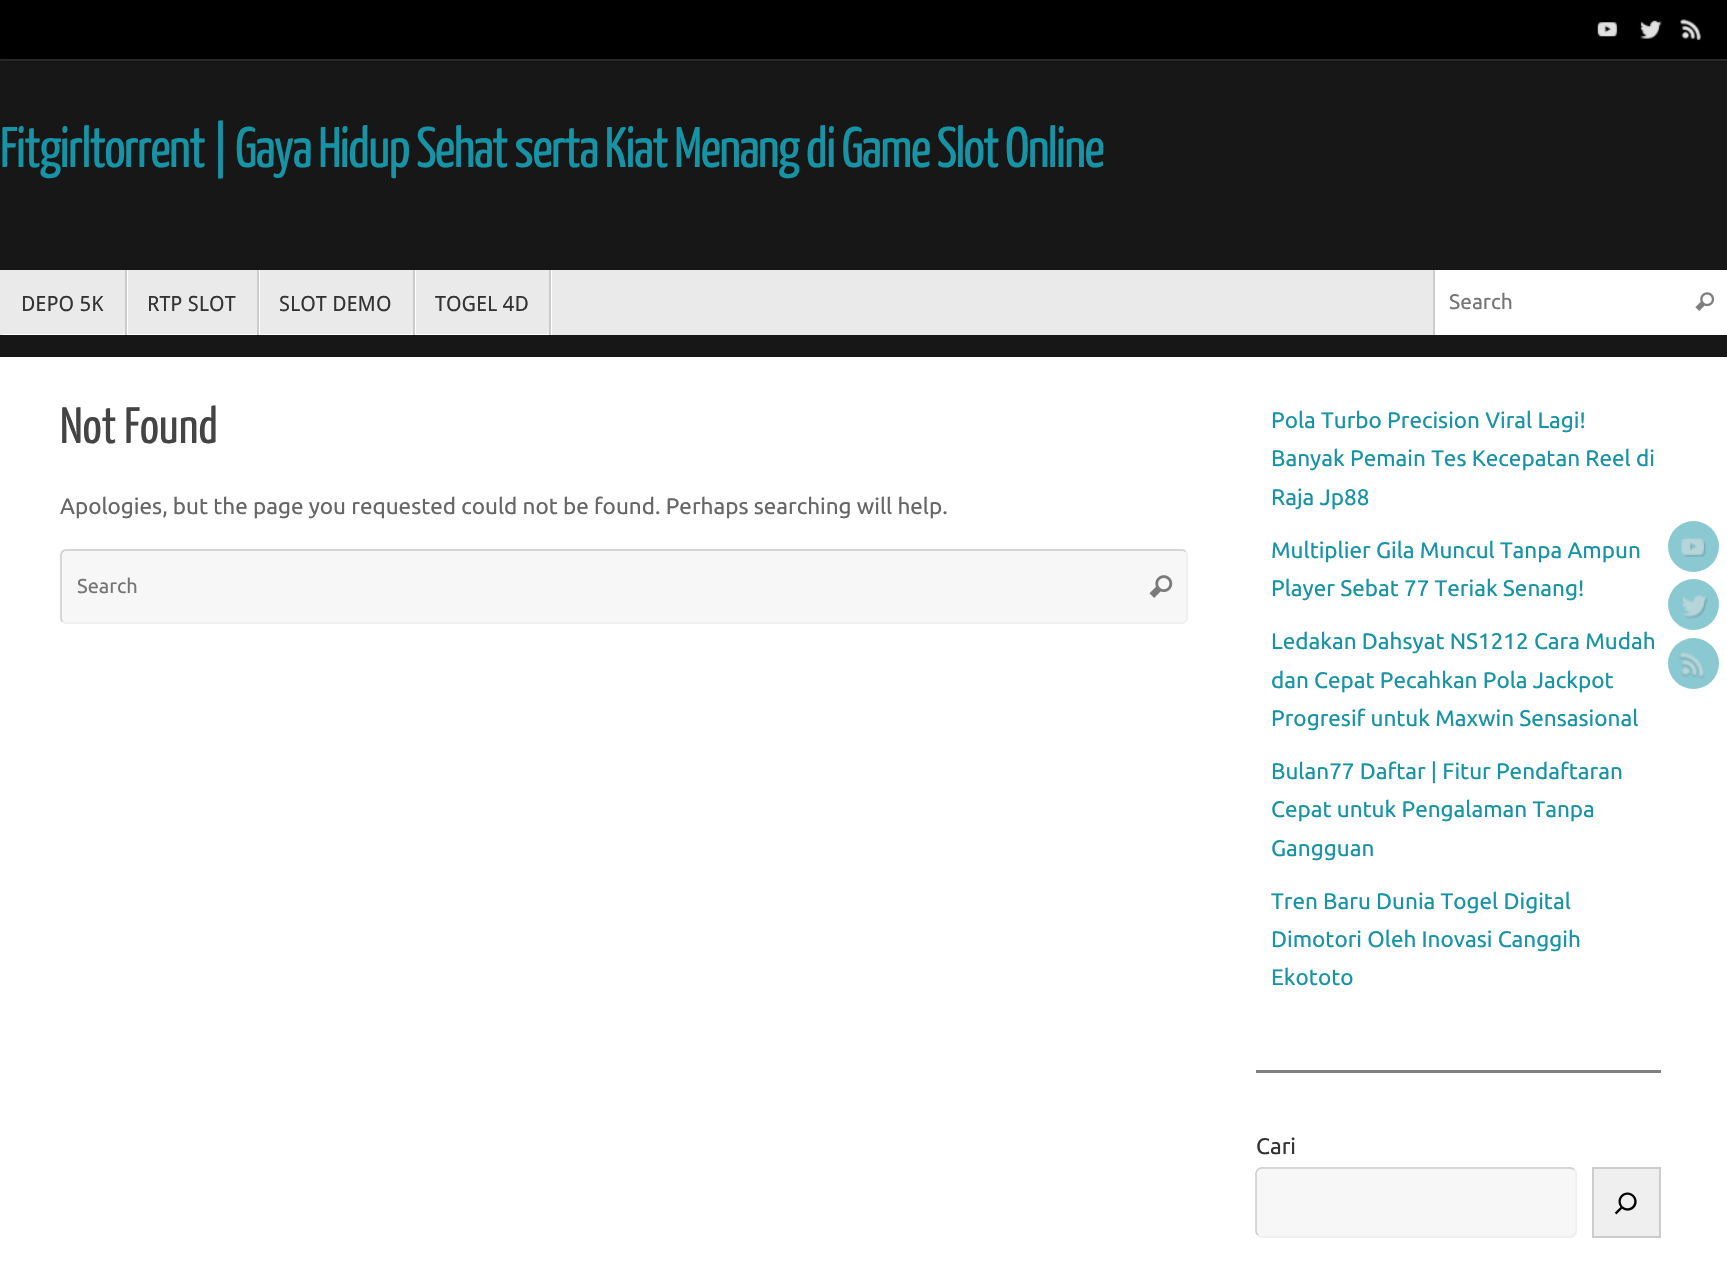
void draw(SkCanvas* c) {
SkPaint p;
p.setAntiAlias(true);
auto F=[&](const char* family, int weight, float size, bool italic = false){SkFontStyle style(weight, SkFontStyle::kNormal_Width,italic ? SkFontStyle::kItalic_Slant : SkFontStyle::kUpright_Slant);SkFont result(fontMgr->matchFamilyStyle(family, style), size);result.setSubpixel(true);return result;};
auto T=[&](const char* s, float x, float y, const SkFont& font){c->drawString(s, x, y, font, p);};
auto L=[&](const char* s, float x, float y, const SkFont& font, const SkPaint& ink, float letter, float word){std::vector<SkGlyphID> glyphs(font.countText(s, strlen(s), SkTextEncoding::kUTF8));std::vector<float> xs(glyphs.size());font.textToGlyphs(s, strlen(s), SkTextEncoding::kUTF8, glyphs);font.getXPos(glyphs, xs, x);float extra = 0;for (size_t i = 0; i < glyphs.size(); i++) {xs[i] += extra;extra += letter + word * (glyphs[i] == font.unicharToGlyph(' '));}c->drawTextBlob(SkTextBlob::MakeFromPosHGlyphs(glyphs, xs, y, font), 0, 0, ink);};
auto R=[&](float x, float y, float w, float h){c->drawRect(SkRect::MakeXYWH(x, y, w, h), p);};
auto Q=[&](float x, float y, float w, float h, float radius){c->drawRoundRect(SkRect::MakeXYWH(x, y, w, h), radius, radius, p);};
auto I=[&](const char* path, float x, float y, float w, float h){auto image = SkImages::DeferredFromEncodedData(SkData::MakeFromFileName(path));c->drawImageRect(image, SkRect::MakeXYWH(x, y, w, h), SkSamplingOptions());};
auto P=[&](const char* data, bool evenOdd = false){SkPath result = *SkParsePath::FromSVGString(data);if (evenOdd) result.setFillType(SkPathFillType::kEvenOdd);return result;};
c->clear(0xff171717);
p.setColor(0xff000000);
p.setMaskFilter(SkMaskFilter::MakeBlur(kNormal_SkBlurStyle, 2));
c->drawRect(SkRect::MakeXYWH(5,0,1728,60),p);
p.setMaskFilter(nullptr);
R(0,0,1727,59);
p.setColor(0xff282828);
R(0,59,1727,2);
I("1.png",1597,22,21,15);
I("2.png",1639,20,23,19);
I("3.png",1680,19,22,22);
auto f1 = F("Yanone Kaffeesatz",400,57);
p.setColor(0xff1693a5);
L("Fitgirltorrent | Gaya Hidup Sehat serta Kiat Menang di Game Slot Online",0,167,f1,p,-1.7,0);
p.setColor(0xffeaeaea);
R(0,270,1433,65);
p.setColor(0xffffffff);
c->drawPath(P("M2 334v1h126v-65h-2v64z"),p);
p.setColor(0xffcccccc);
R(125,270,2,65);
auto f2 = F("Droid Sans",400,21);
p.setColor(0xff333333);
T("DEPO 5K",21,311,f2);
p.setColor(0xffffffff);
c->drawPath(P("M128 334v1h132v-65h-2v64z"),p);
p.setColor(0xffcccccc);
R(257,270,2,65);
p.setColor(0xff333333);
T("RTP SLOT",147,311,f2);
p.setColor(0xffffffff);
c->drawPath(P("M260 334v1h156v-65h-2v64z"),p);
p.setColor(0xffcccccc);
R(413,270,2,65);
p.setColor(0xff333333);
T("SLOT DEMO",279,311,f2);
p.setColor(0xffffffff);
c->drawPath(P("M416 334v1h136v-65h-2v64z"),p);
p.setColor(0xffcccccc);
R(549,270,2,65);
p.setColor(0xff333333);
T("TOGEL 4D",435,311,f2);
p.setColor(0xffffffff);
R(1435,270,292,65);
p.setColor(0xffcccccc);
R(1433,270,2,65);
auto f3 = F("Ubuntu",400,21);
p.setColor(0xff757575);
T("Search",1449,309,f3);
I("4.png",1695,292,20,19);
p.setColor(0xffffffff);
R(0,357,1727,926);
auto f4 = F("Yanone Kaffeesatz",400,51);
p.setColor(0xff444444);
T("Not Found",60,443,f4);
auto f5 = F("Ubuntu",400,22.5);
p.setColor(0xff666666);
T("Apologies, but the page you requested could not be found. Perhaps searching will help.",60,514,f5);
p.setColor(0xfff7f7f7);
Q(60,549,1128,75,6);
p.setStroke(true);
p.setStrokeWidth(1.5);
p.setColor(0xffeeeeee);
c->drawPath(P("M1185.5 551.5c1 1 1.5 2 1.5 3.5v63c0 1.5-.5 2.5-1.5 3.5c-1 1-2 1.5-3.5 1.5h-1116c-1.5 0-2.5-.5-3.5-1.5"),p);
p.setColor(0xffcccccc);
c->drawPath(P("M62.5 621.5c-1-1-1.5-2-1.5-3.5v-63c0-1.5 .5-2.5 1.5-3.5c1-1 2-1.5 3.5-1.5h1116c1.5 0 2.5 .5 3.5 1.5"),p);
auto f6 = F("Ubuntu",400,20);
p.setStroke(false);
p.setColor(0xff757575);
T("Search",77,593,f6);
I("5.png",1149,575,24,23);
p.setColor(0xff1693a5);
T("Pola Turbo Precision Viral Lagi!",1271,428,f5);
T("Banyak Pemain Tes Kecepatan Reel di",1271,466,f5);
T("Raja Jp88",1271,505,f5);
T("Multiplier Gila Muncul Tanpa Ampun",1271,558,f5);
T("Player Sebat 77 Teriak Senang!",1271,596,f5);
T("Ledakan Dahsyat NS1212 Cara Mudah",1271,649,f5);
T("dan Cepat Pecahkan Pola Jackpot",1271,688,f5);
T("Progresif untuk Maxwin Sensasional",1271,726,f5);
T("Bulan77 Daftar | Fitur Pendaftaran",1271,779,f5);
T("Cepat untuk Pengalaman Tanpa",1271,817,f5);
T("Gangguan",1271,856,f5);
T("Tren Baru Dunia Togel Digital",1271,909,f5);
T("Dimotori Oleh Inovasi Canggih",1271,947,f5);
T("Ekototo",1271,985,f5);
p.setColor(0xff808080);
R(1256,1070,405,3);
p.setColor(0xff333333);
T("Cari",1256,1154,f5);
p.setColor(0xfff7f7f7);
Q(1256,1167,321,71,6);
p.setStroke(true);
p.setColor(0xffeeeeee);
c->drawPath(P("M1574 1169.5c1 1 2 2 2 3.5v58.5c0 1.5-1 2.5-2 3.5c-1 1-2 2-3.5 2h-309c-1.5 0-2.5-1-3.5-2"),p);
p.setColor(0xffcccccc);
c->drawPath(P("M1258 1235c-1-1-2-2-2-3.5v-58.5c0-1.5 1-2.5 2-3.5c1-1 2-1.5 3.5-1.5h309c1.5 0 2.5 .5 3.5 1.5"),p);
p.setStroke(false);
p.setColor(0xffefefef);
c->drawRect(SkRect::MakeXYWH(1593,1168,67,69),p);
p.setStroke(true);
p.setStrokeWidth(2);
p.setColor(0xffcccccc);
c->drawRect(SkRect::MakeXYWH(1593,1168,67,69),p);
I("6.png",1614,1192,23,23);
p.setStroke(false);
p.setColor(0xff8bc9d2);
c->drawCircle(1693.5,546.5,25.5,p);
I("7.png",1681,538,25,19);
c->drawCircle(1693.5,604.5,25.5,p);
I("8.png",1682,595,26,24);
c->drawCircle(1693.5,663.5,25.5,p);
I("9.png",1679,652,26,27);
}
